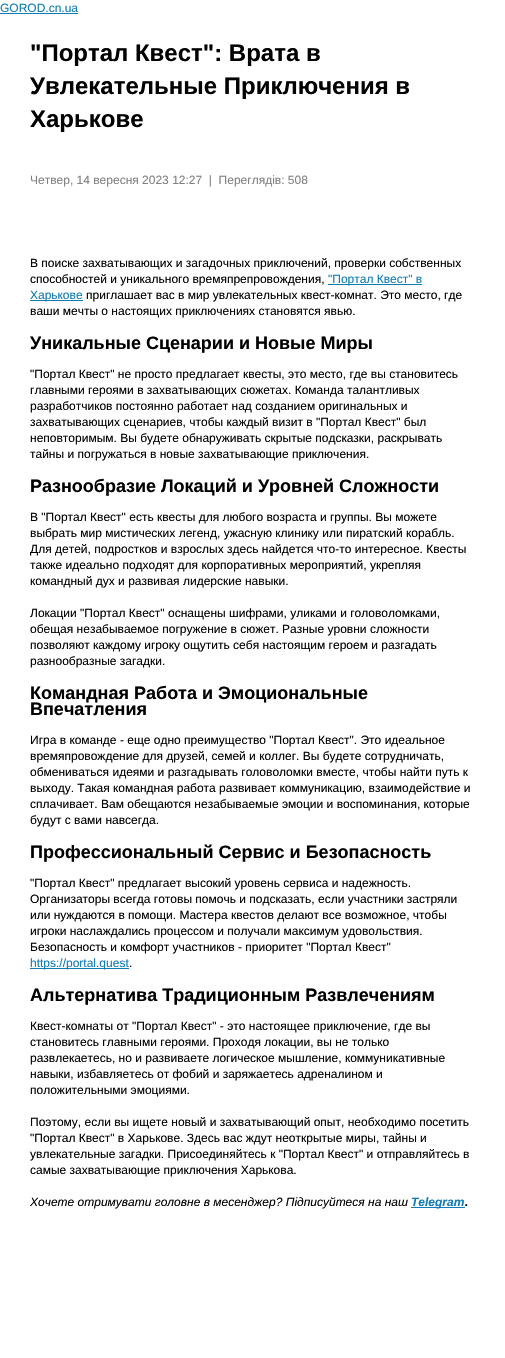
void draw(SkCanvas* c) {
SkPaint p;
p.setAntiAlias(true);
auto F=[&](const char* family, int weight, float size, bool italic = false){SkFontStyle style(weight, SkFontStyle::kNormal_Width,italic ? SkFontStyle::kItalic_Slant : SkFontStyle::kUpright_Slant);SkFont result(fontMgr->matchFamilyStyle(family, style), size);result.setSubpixel(true);return result;};
auto T=[&](const char* s, float x, float y, const SkFont& font){c->drawString(s, x, y, font, p);};
auto R=[&](float x, float y, float w, float h){c->drawRect(SkRect::MakeXYWH(x, y, w, h), p);};
c->clear(0xffffffff);
auto f1 = F("Liberation Sans",400,12);
p.setColor(0xff117cb3);
T("GOROD.cn.ua",0,12,f1);
R(0,13,78,1);
auto f2 = F("Liberation Sans",700,24);
p.setColor(0xff010101);
T("\"Портал Квест\": Врата в",30,61,f2);
T("Увлекательные Приключения в",30,94,f2);
T("Харькове",30,127,f2);
p.setColor(0xff818181);
T("Четвер, 14 вересня 2023 12:27  |  Переглядів: 508",30,184,f1);
p.setColor(0xff010101);
T("В поиске захватывающих и загадочных приключений, проверки собственных",30,267,f1);
T("способностей и уникального времяпрепровождения,",30,283,f1);
p.setColor(0xff117cb3);
R(328,284,94,1);
T("\"Портал Квест\" в",328,283,f1);
R(30,300,53,1);
T("Харькове",30,299,f1);
p.setColor(0xff010101);
T("приглашает вас в мир увлекательных квест-комнат. Это место, где",86,299,f1);
T("ваши мечты о настоящих приключениях становятся явью.",30,315,f1);
auto f3 = F("Liberation Sans",700,18);
T("Уникальные Сценарии и Новые Миры",30,349,f3);
T("\"Портал Квест\" не просто предлагает квесты, это место, где вы становитесь",30,378,f1);
T("главными героями в захватывающих сюжетах. Команда талантливых",30,394,f1);
T("разработчиков постоянно работает над созданием оригинальных и",30,410,f1);
T("захватывающих сценариев, чтобы каждый визит в \"Портал Квест\" был",30,426,f1);
T("неповторимым. Вы будете обнаруживать скрытые подсказки, раскрывать",30,442,f1);
T("тайны и погружаться в новые захватывающие приключения.",30,458,f1);
T("Разнообразие Локаций и Уровней Сложности",30,492,f3);
T("В \"Портал Квест\" есть квесты для любого возраста и группы. Вы можете",30,521,f1);
T("выбрать мир мистических легенд, ужасную клинику или пиратский корабль.",30,537,f1);
T("Для детей, подростков и взрослых здесь найдется что-то интересное. Квесты",30,553,f1);
T("также идеально подходят для корпоративных мероприятий, укрепляя",30,569,f1);
T("командный дух и развивая лидерские навыки.",30,585,f1);
T("Локации \"Портал Квест\" оснащены шифрами, уликами и головоломками,",30,617,f1);
T("обещая незабываемое погружение в сюжет. Разные уровни сложности",30,633,f1);
T("позволяют каждому игроку ощутить себя настоящим героем и разгадать",30,649,f1);
T("разнообразные загадки.",30,665,f1);
T("Командная Работа и Эмоциональные",30,699,f3);
T("Впечатления",30,715,f3);
T("Игра в команде - еще одно преимущество \"Портал Квест\". Это идеальное",30,744,f1);
T("времяпровождение для друзей, семей и коллег. Вы будете сотрудничать,",30,760,f1);
T("обмениваться идеями и разгадывать головоломки вместе, чтобы найти путь к",30,776,f1);
T("выходу. Такая командная работа развивает коммуникацию, взаимодействие и",30,792,f1);
T("сплачивает. Вам обещаются незабываемые эмоции и воспоминания, которые",30,808,f1);
T("будут с вами навсегда.",30,824,f1);
T("Профессиональный Сервис и Безопасность",30,858,f3);
T("\"Портал Квест\" предлагает высокий уровень сервиса и надежность.",30,887,f1);
T("Организаторы всегда готовы помочь и подсказать, если участники застряли",30,903,f1);
T("или нуждаются в помощи. Мастера квестов делают все возможное, чтобы",30,919,f1);
T("игроки наслаждались процессом и получали максимум удовольствия.",30,935,f1);
T("Безопасность и комфорт участников - приоритет \"Портал Квест\"",30,951,f1);
p.setColor(0xff117cb3);
R(30,968,99,1);
T("https://portal.quest",30,967,f1);
p.setColor(0xff010101);
T(".",129,967,f1);
T("Альтернатива Традиционным Развлечениям",30,1001,f3);
T("Квест-комнаты от \"Портал Квест\" - это настоящее приключение, где вы",30,1030,f1);
T("становитесь главными героями. Проходя локации, вы не только",30,1046,f1);
T("развлекаетесь, но и развиваете логическое мышление, коммуникативные",30,1062,f1);
T("навыки, избавляетесь от фобий и заряжаетесь адреналином и",30,1078,f1);
T("положительными эмоциями.",30,1094,f1);
T("Поэтому, если вы ищете новый и захватывающий опыт, необходимо посетить",30,1126,f1);
T("\"Портал Квест\" в Харькове. Здесь вас ждут неоткрытые миры, тайны и",30,1142,f1);
T("увлекательные загадки. Присоединяйтесь к \"Портал Квест\" и отправляйтесь в",30,1158,f1);
T("самые захватывающие приключения Харькова.",30,1174,f1);
auto f4 = F("Liberation Sans",400,12,true);
T("Хочете отримувати головне в месенджер? Підписуйтеся на наш",30,1206,f4);
p.setColor(0xff117cb3);
R(411,1207,54,1);
auto f5 = F("Liberation Sans",700,12,true);
T("Telegram",411,1206,f5);
p.setColor(0xff010101);
T(".",465,1206,f5);
}
